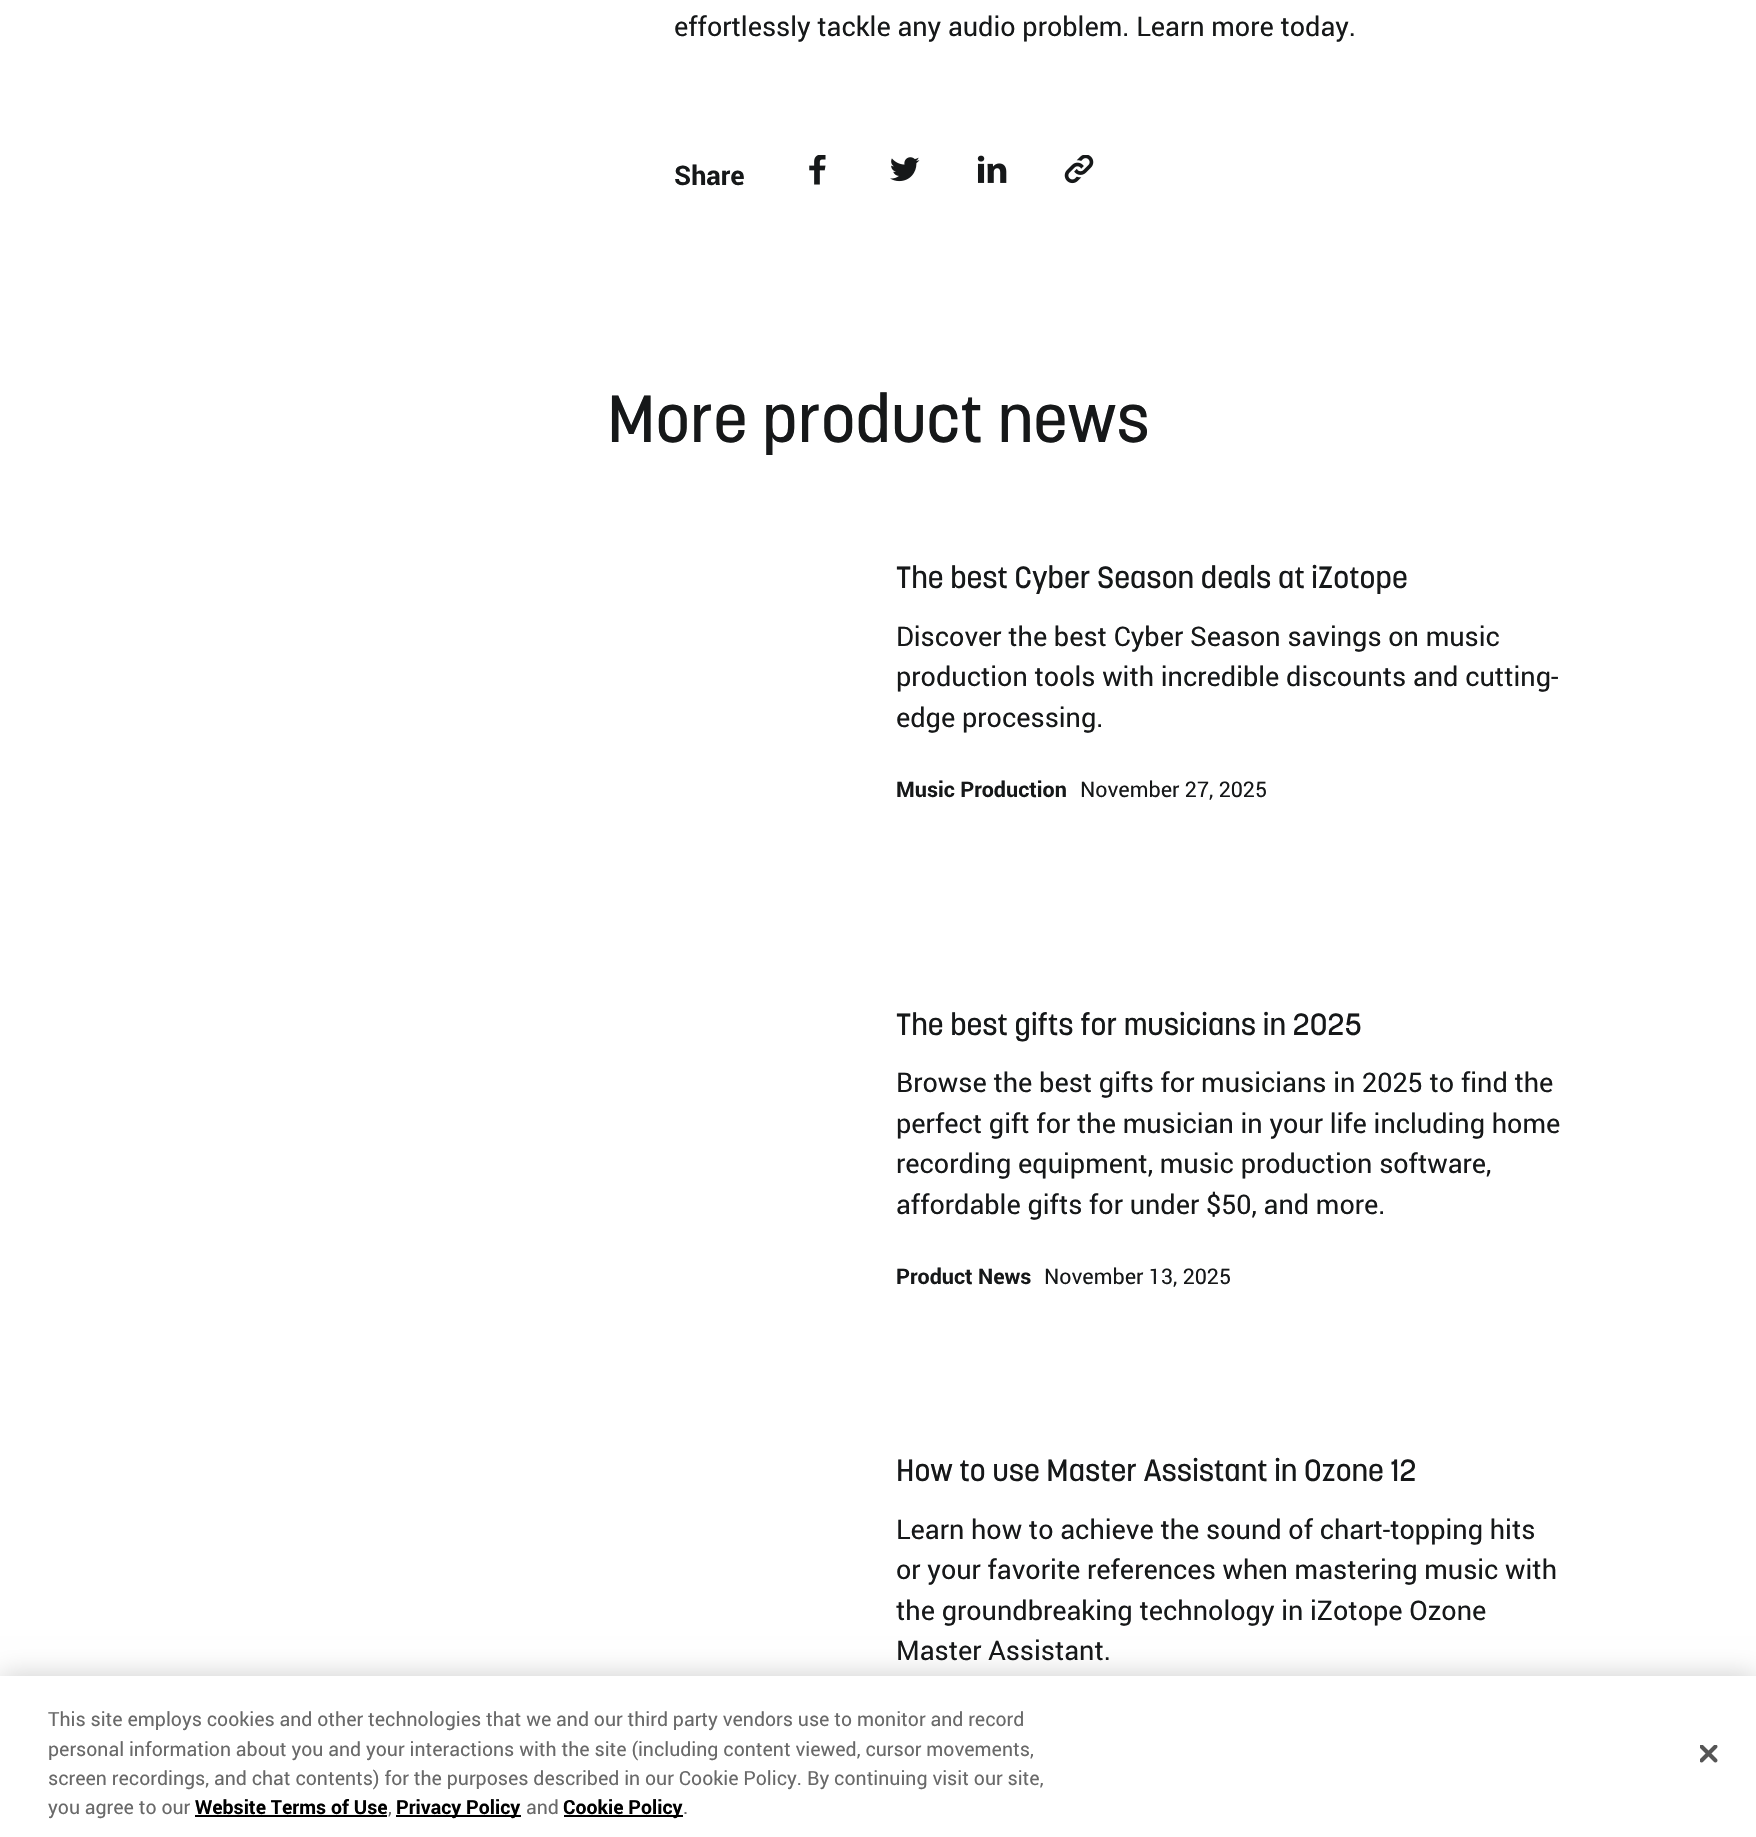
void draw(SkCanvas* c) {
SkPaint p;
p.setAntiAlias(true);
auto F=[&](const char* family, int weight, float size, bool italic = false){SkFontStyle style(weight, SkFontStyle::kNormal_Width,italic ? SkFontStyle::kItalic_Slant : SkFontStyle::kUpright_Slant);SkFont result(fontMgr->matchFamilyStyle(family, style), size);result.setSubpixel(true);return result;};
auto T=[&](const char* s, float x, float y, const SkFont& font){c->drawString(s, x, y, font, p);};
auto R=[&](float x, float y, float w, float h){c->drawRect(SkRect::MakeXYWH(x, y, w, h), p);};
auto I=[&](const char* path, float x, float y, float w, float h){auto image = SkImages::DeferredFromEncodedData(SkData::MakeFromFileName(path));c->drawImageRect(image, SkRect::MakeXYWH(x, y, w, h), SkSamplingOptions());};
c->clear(0xffffffff);
auto f1 = F("Roboto",400,27);
p.setColor(0xff161819);
T("effortlessly tackle any audio problem. Learn more today.",674,36,f1);
auto f2 = F("Roboto",700,27);
T("Share",674,185,f2);
I("1.png",809,155,17,30);
I("2.png",890,157,30,25);
I("3.png",977,155,30,28);
I("4.png",1064,155,30,29);
auto f3 = F("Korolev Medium",500,66);
T("More product news",607,442,f3);
auto f4 = F("Korolev Medium",500,30.4);
T("The best Cyber Season deals at iZotope",896,588,f4);
T("Discover the best Cyber Season savings on music",896,646,f1);
T("production tools with incredible discounts and cutting-",896,686,f1);
T("edge processing.",896,727,f1);
auto f5 = F("Roboto",700,21.5);
T("Music Production",896,797,f5);
auto f6 = F("Roboto",400,21.5);
T("November 27, 2025",1080,797,f6);
T("The best gifts for musicians in 2025",896,1035,f4);
T("Browse the best gifts for musicians in 2025 to find the",896,1092,f1);
T("perfect gift for the musician in your life including home",896,1133,f1);
T("recording equipment, music production software,",896,1173,f1);
T("affordable gifts for under $50, and more.",896,1214,f1);
T("Product News",896,1284,f5);
T("November 13, 2025",1044,1284,f6);
T("How to use Master Assistant in Ozone 12",896,1481,f4);
T("Learn how to achieve the sound of chart-topping hits",896,1539,f1);
T("or your favorite references when mastering music with",896,1579,f1);
T("the groundbreaking technology in iZotope Ozone",896,1620,f1);
T("Master Assistant.",896,1660,f1);
p.setColor(0x33000000);
p.setMaskFilter(SkMaskFilter::MakeBlur(kNormal_SkBlurStyle, 13.5));
c->drawRect(SkRect::MakeXYWH(0,1676,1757,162),p);
p.setMaskFilter(nullptr);
p.setColor(0xffffffff);
R(0,1676,1756,161);
auto f7 = F("Roboto",400,19.5);
p.setColor(0xff696969);
T("This site employs cookies and other technologies that we and our third party vendors use to monitor and record",48,1726,f7);
T("personal information about you and your interactions with the site (including content viewed, cursor movements,",48,1756,f7);
T("screen recordings, and chat contents) for the purposes described in our Cookie Policy.",48,1785,f7);
T("By continuing visit our site,",807,1785,f7);
T("you agree to our",48,1814,f7);
auto f8 = F("Roboto",700,19.5);
p.setColor(0xff000000);
T("Website Terms of Use",195,1814,f8);
R(195,1815,192,2);
p.setColor(0xff696969);
T(",",388,1814,f7);
p.setColor(0xff000000);
R(396,1815,125,2);
T("Privacy Policy",396,1814,f8);
p.setColor(0xff696969);
T("and",526,1814,f7);
p.setColor(0xff000000);
R(564,1815,119,2);
T("Cookie Policy",563,1814,f8);
p.setColor(0xff696969);
T(".",683,1814,f7);
I("5.png",1700,1745,18,18);
}
